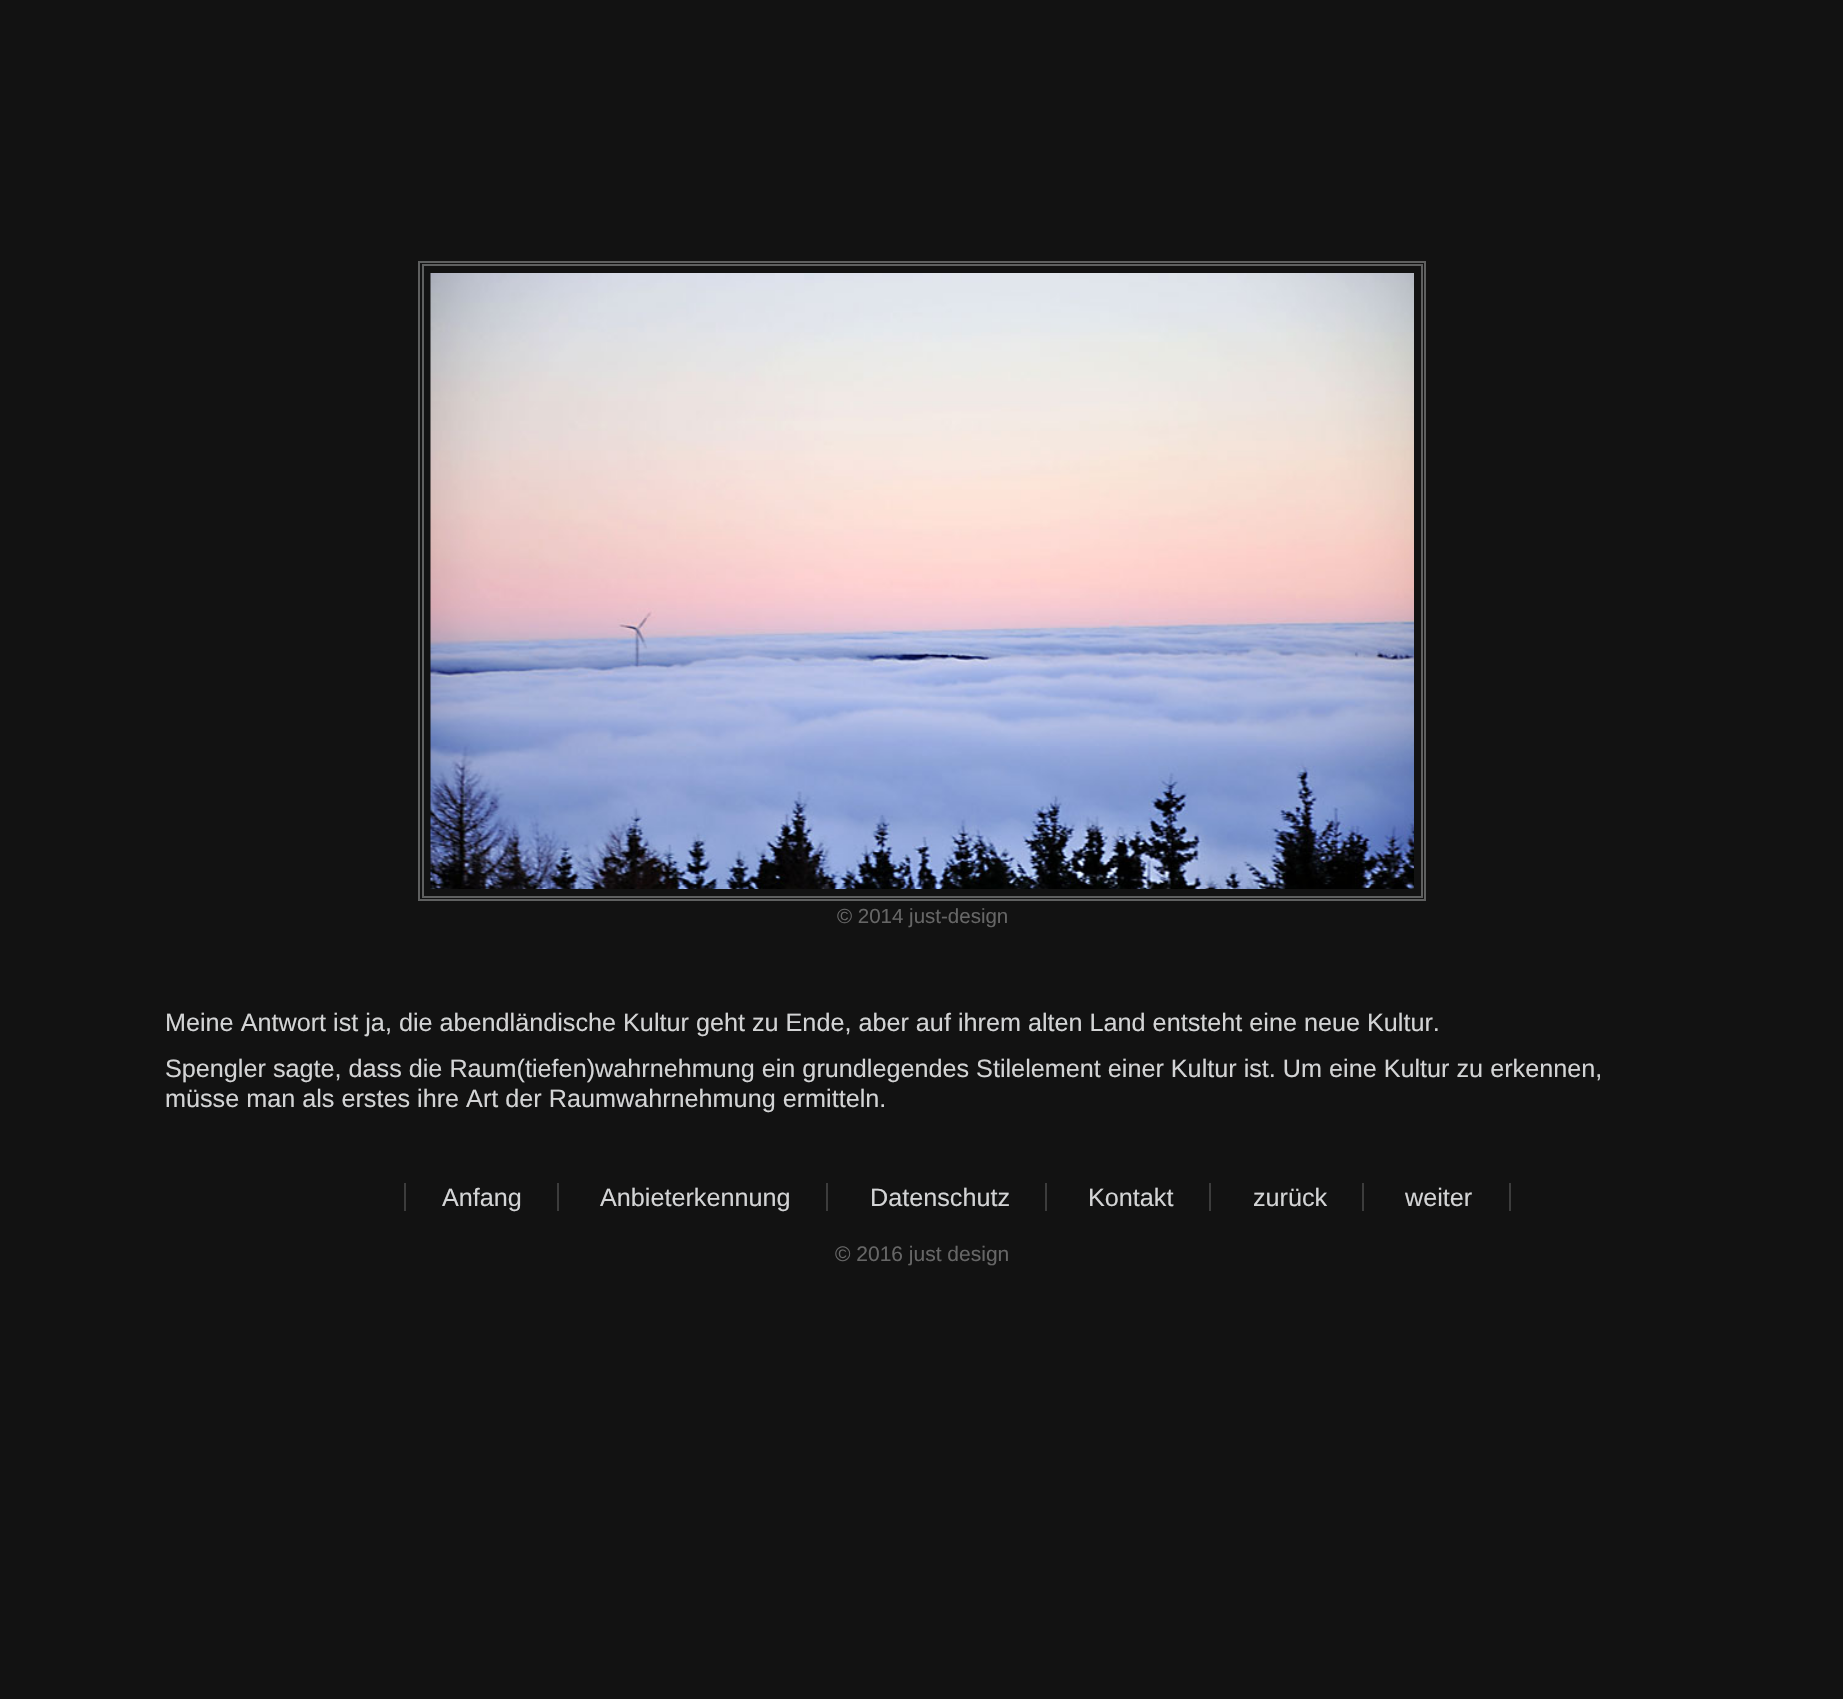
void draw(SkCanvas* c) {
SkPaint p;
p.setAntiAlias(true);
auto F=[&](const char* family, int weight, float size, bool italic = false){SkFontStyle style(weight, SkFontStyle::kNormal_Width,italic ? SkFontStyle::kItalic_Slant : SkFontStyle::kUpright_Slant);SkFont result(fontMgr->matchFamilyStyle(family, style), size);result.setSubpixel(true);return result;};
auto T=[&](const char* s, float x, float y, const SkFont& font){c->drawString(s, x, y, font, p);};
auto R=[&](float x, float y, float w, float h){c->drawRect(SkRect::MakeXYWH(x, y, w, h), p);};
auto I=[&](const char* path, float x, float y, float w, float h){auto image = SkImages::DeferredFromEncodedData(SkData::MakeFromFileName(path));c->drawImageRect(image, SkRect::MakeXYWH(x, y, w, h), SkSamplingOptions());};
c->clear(0xff121212);
p.setStroke(true);
p.setStrokeWidth(2);
p.setColor(0xff5f6060);
c->drawRect(SkRect::MakeXYWH(419,262,1006,638),p);
c->drawRect(SkRect::MakeXYWH(423,265,999,632),p);
I("1.png",430,273,984,616);
auto f1 = F("Liberation Sans",400,20.5);
p.setStroke(false);
p.setColor(0xff666666);
T("© 2014 just-design",837,923,f1);
auto f2 = F("Liberation Sans",400,25.2);
p.setColor(0xffd3d4d5);
T("Meine Antwort ist ja, die abendländische Kultur geht zu Ende, aber auf ihrem alten Land entsteht eine neue Kultur.",165,1031,f2);
T("Spengler sagte, dass die Raum(tiefen)wahrnehmung ein grundlegendes Stilelement einer Kultur ist. Um eine Kultur zu erkennen,",165,1077,f2);
T("müsse man als erstes ihre Art der Raumwahrnehmung ermitteln.",165,1107,f2);
T("Anfang",442,1206,f2);
p.setColor(0xff3c3c3c);
R(557,1183,2,28);
R(404,1183,2,28);
p.setColor(0xffd3d4d5);
T("Anbieterkennung",600,1206,f2);
p.setColor(0xff3c3c3c);
R(826,1183,2,28);
p.setColor(0xffd3d4d5);
T("Datenschutz",870,1206,f2);
p.setColor(0xff3c3c3c);
R(1045,1183,2,28);
p.setColor(0xffd3d4d5);
T("Kontakt",1088,1206,f2);
p.setColor(0xff3c3c3c);
R(1209,1183,2,28);
p.setColor(0xffd3d4d5);
T("zurück",1253,1206,f2);
p.setColor(0xff3c3c3c);
R(1362,1183,2,28);
p.setColor(0xffd3d4d5);
T("weiter",1405,1206,f2);
p.setColor(0xff3c3c3c);
R(1509,1183,2,28);
auto f3 = F("Liberation Sans",400,21);
p.setColor(0xff666666);
T("© 2016 just design",835,1261,f3);
}
